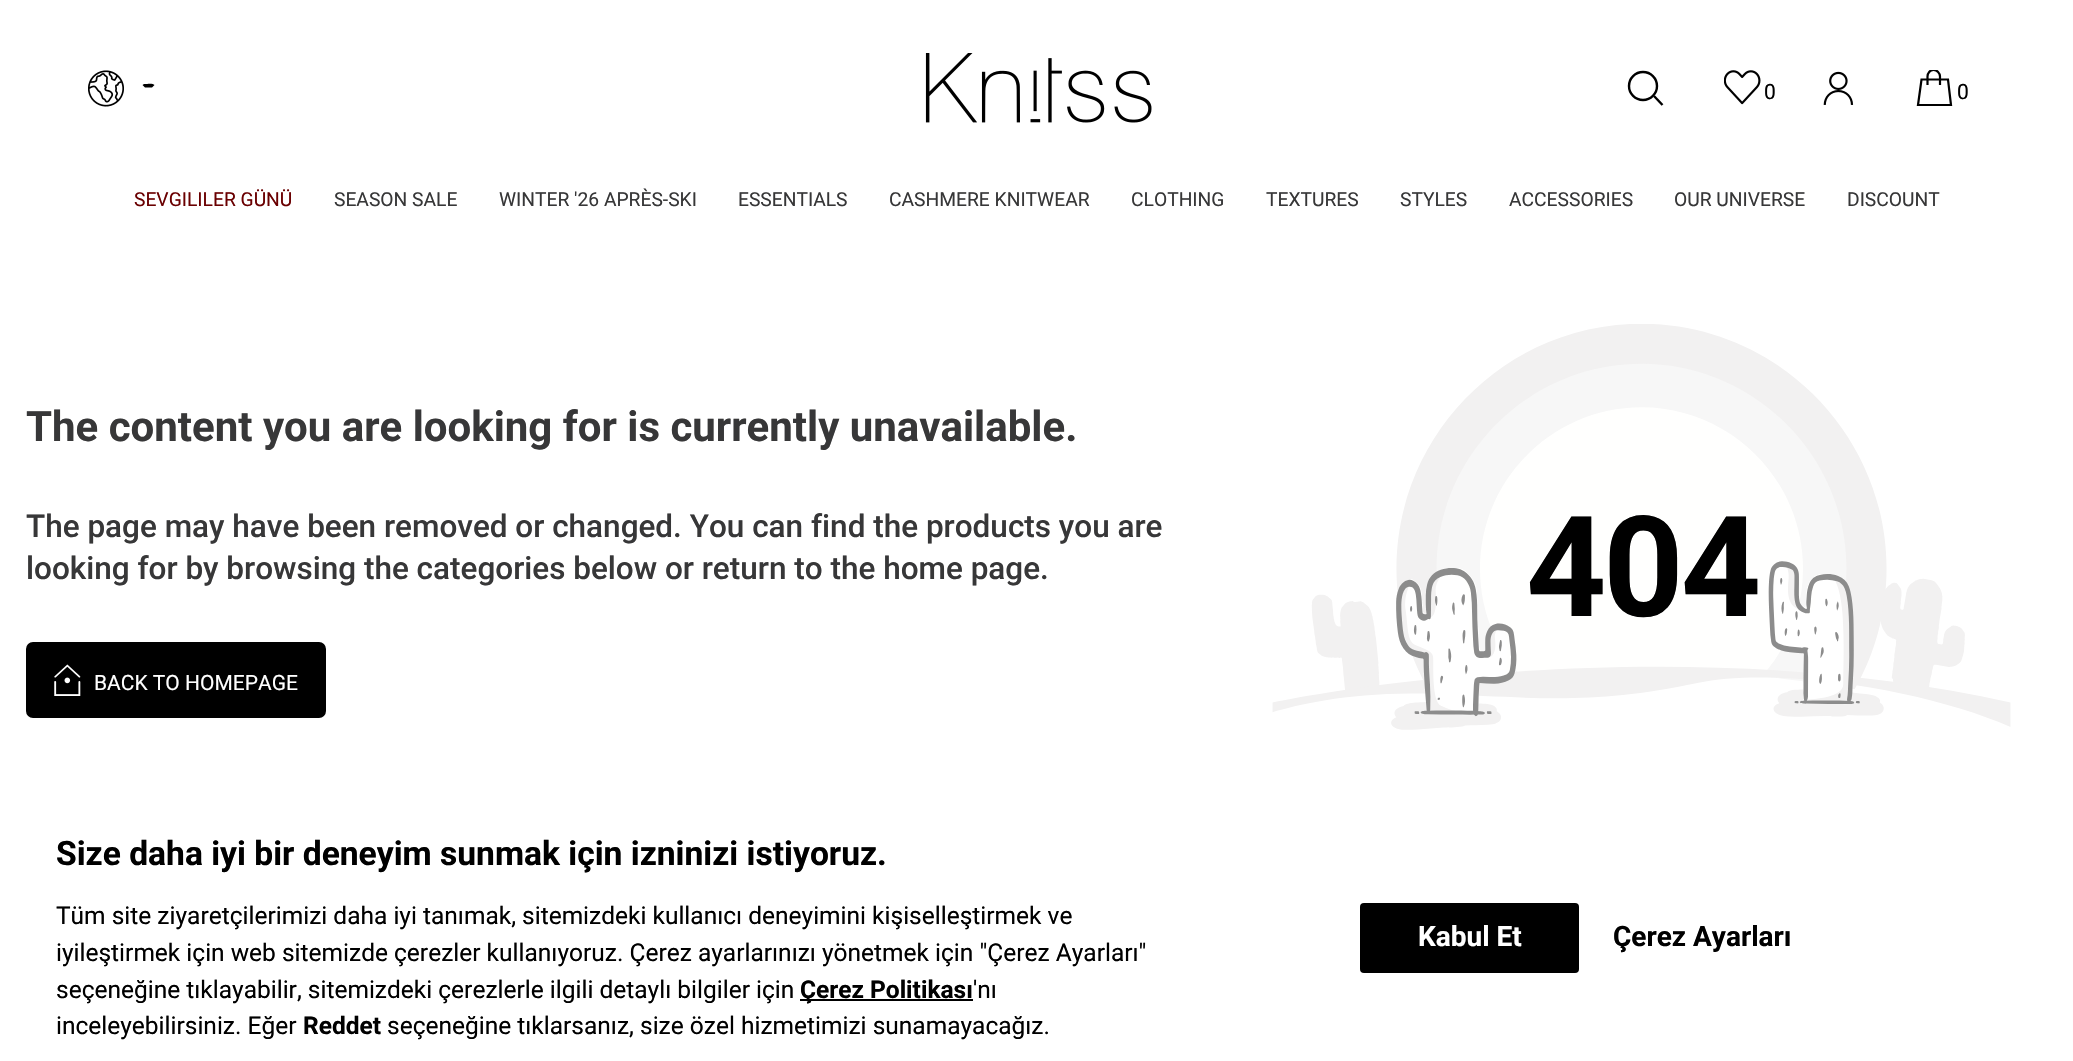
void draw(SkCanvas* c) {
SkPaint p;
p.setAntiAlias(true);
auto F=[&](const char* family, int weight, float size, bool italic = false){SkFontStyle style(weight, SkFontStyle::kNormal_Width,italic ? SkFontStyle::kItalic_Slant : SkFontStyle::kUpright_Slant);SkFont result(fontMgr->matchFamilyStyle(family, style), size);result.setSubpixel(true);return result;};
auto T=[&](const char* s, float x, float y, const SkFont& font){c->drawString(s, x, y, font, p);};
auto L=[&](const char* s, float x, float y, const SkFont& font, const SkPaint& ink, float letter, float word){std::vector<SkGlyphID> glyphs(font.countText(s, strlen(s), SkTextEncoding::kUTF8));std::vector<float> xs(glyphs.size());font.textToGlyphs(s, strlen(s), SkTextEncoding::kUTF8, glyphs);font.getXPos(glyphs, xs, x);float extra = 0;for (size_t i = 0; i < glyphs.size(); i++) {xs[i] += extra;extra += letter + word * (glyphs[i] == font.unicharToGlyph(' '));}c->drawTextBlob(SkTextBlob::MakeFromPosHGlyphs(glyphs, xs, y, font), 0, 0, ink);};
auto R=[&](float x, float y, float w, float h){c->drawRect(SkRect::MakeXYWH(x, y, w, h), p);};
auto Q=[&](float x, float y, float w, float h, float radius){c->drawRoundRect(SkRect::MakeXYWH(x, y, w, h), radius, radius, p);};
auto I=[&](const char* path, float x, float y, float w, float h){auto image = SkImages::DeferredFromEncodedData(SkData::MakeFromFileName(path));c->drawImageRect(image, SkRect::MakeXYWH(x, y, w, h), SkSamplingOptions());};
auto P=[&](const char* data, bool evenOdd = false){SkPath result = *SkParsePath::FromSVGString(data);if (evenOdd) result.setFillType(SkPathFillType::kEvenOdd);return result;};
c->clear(0xffffffff);
I("1.png",88,70,36,37);
p.setColor(0xff000000);
c->drawPath(P("M145 84c2 0 8-1 9.5 1l-2.5 2.5h-7l-2.5-2.5c.5-.5 1.5-1 2.5-1z"),p);
I("2.png",925,53,227,70);
p.setStroke(true);
p.setStrokeWidth(2.4);
c->drawPath(P("M1662.5 105l-8.5-9"),p);
c->drawCircle(1643,86,14,p);
I("3.png",1724,70,37,35);
auto f1 = F("Roboto",400,21);
p.setStroke(false);
T("0",1764,99,f1);
I("4.png",1823,71,31,34);
p.setStroke(true);
p.setStrokeWidth(2.2);
c->drawPath(P("M1951 105h-33l3.5-25.5h26.5z"),p);
c->save();
c->clipRect(SkRect::MakeXYWH(1916,70,37,37));
c->drawPath(P("M1927.5 85v-8.5c0-3.5 2.5-6.5 6-6.5c3.5 0 6.5 3 6.5 6.5v8.5"),p);
c->restore();
p.setStroke(false);
T("0",1957,99,f1);
auto f2 = F("Roboto",400,19.25);
p.setColor(0xff6a0001);
T("SEVGILILER GÜNÜ",134,206,f2);
p.setColor(0xff373738);
T("SEASON SALE",334,206,f2);
T("WINTER '26 APRÈS-SKI",499,206,f2);
T("ESSENTIALS",738,206,f2);
T("CASHMERE KNITWEAR",889,206,f2);
T("CLOTHING",1131,206,f2);
T("TEXTURES",1266,206,f2);
T("STYLES",1400,206,f2);
T("ACCESSORIES",1509,206,f2);
T("OUR UNIVERSE",1674,206,f2);
T("DISCOUNT",1847,206,f2);
auto f3 = F("Roboto",700,42);
T("The content you are looking for is currently unavailable.",26,441,f3);
auto f4 = F("Roboto",500,31.5);
T("The page may have been removed or changed. You can find the products you are",26,537,f4);
T("looking for by browsing the categories below or return to the home page.",26,579,f4);
p.setColor(0xff000000);
c->drawRoundRect(SkRect::MakeXYWH(27,643,298,74),6,6,p);
p.setStroke(true);
p.setStrokeWidth(2);
c->drawRoundRect(SkRect::MakeXYWH(27,643,298,74),6,6,p);
I("5.png",54,664,27,32);
p.setStroke(false);
p.setColor(0xffffffff);
T("BACK TO HOMEPAGE",94,690,f1);
I("6.png",1272,324,739,471);
auto f5 = F("Roboto",700,140);
p.setColor(0xff000000);
L("404",1526,616,f5,p,-3,0);
auto f6 = F("Roboto",700,33.6);
T("Size daha iyi bir deneyim sunmak için izninizi istiyoruz.",56,865,f6);
auto f7 = F("Roboto",400,24.5);
T("Tüm site ziyaretçilerimizi daha iyi tanımak, sitemizdeki kullanıcı deneyimini kişiselleştirmek ve",56,924,f7);
T("iyileştirmek için web sitemizde çerezler kullanıyoruz. Çerez ayarlarınızı yönetmek için \"Çerez Ayarları\"",56,961,f7);
T("seçeneğine tıklayabilir, sitemizdeki çerezlerle ilgili detaylı bilgiler için",56,998,f7);
R(800,999,173,2);
auto f8 = F("Roboto",700,24.5);
T("Çerez Politikası",800,998,f8);
T("'nı",973,998,f7);
T("inceleyebilirsiniz. Eğer",56,1034,f7);
T("Reddet",303,1034,f8);
T("seçeneğine tıklarsanız, size özel hizmetimizi sunamayacağız.",387,1034,f7);
Q(1360,903,219,70,4);
auto f9 = F("Roboto",700,28);
p.setColor(0xffffffff);
T("Kabul Et",1418,946,f9);
p.setColor(0xff000000);
T("Çerez Ayarları",1613,946,f9);
}
